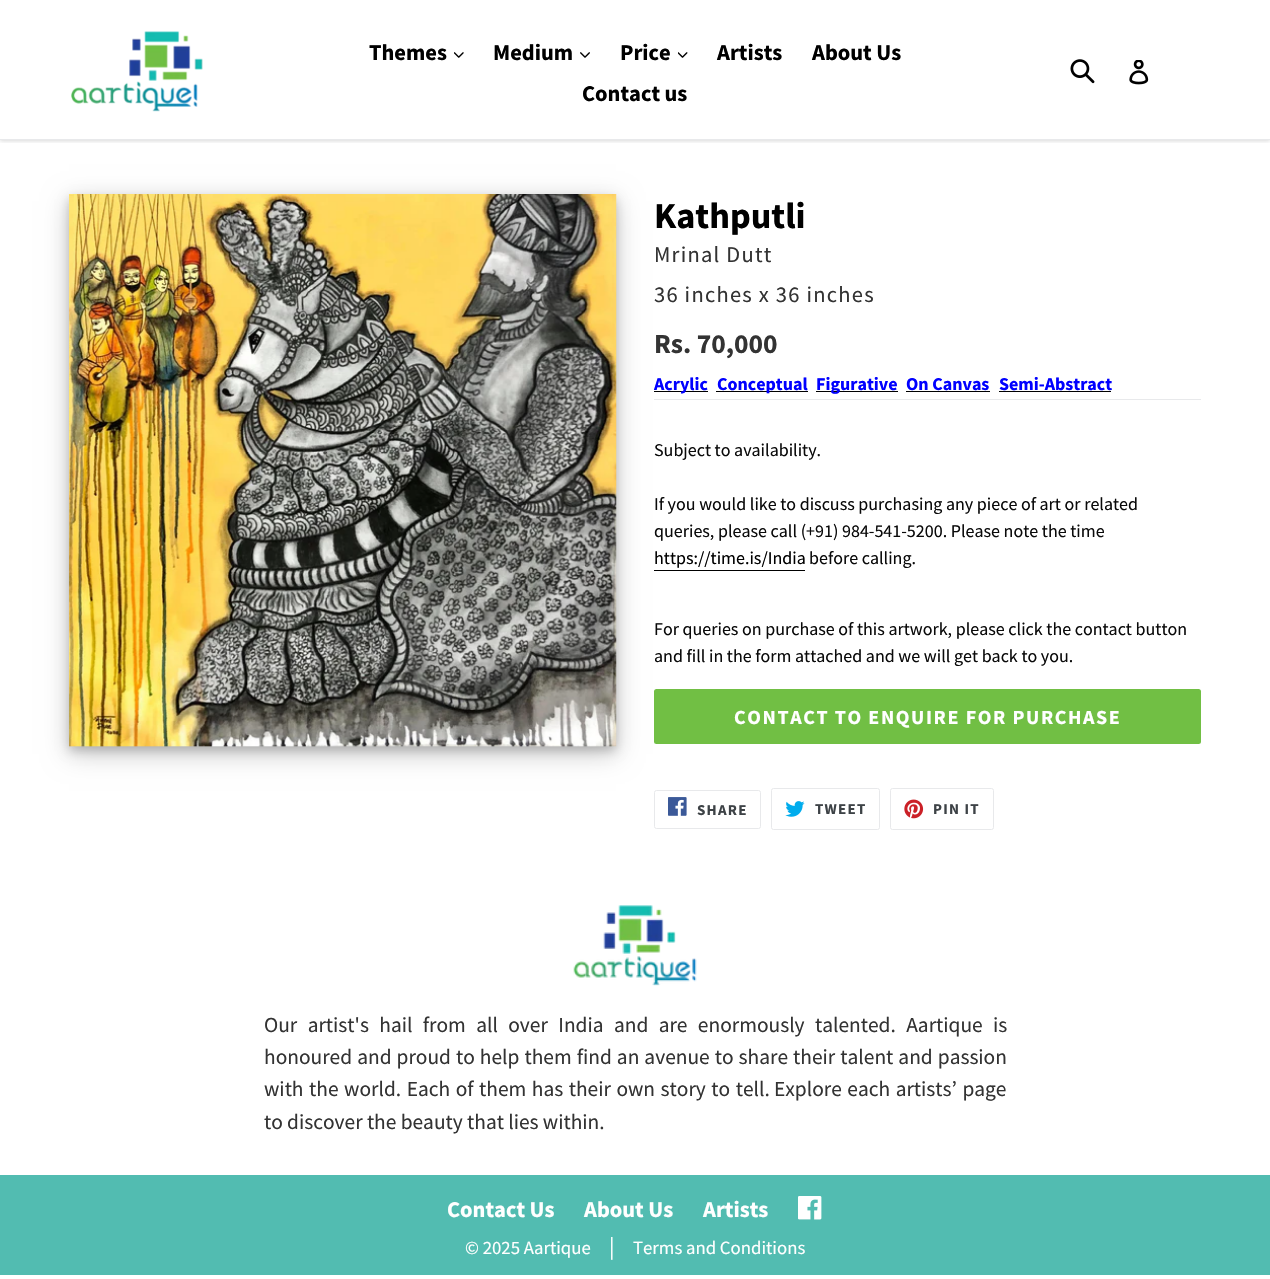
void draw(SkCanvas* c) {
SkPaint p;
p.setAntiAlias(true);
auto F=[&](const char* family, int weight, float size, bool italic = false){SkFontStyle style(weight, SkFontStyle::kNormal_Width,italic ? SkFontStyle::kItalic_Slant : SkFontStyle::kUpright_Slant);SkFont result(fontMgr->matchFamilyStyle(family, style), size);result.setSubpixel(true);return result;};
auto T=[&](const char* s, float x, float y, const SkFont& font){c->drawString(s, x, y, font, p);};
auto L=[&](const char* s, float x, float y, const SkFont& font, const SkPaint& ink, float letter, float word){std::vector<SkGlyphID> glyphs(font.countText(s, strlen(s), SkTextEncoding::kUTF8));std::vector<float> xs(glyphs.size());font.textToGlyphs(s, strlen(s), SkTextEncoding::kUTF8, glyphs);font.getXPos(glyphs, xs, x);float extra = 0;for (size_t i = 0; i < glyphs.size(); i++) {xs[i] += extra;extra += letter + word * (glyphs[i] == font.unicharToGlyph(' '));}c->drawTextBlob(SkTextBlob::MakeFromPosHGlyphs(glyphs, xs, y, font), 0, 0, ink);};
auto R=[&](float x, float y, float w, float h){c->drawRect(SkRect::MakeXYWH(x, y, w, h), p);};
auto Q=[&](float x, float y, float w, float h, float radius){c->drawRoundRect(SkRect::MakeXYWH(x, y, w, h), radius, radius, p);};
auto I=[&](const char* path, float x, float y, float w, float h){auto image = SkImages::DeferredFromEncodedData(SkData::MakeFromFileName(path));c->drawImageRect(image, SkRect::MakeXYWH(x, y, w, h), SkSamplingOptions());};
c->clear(0xffffffff);
c->save();
c->clipRect(SkRect::MakeXYWH(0,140,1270,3));
p.setColor(0x26000000);
p.setMaskFilter(SkMaskFilter::MakeBlur(kNormal_SkBlurStyle, 2));
c->drawRect(SkRect::MakeXYWH(0,1,1270,140),p);
p.setMaskFilter(nullptr);
c->restore();
p.setColor(0xffe8e9eb);
R(0,139,1270,1);
I("1.png",71,31,132,81);
auto f1 = F("Source Sans Pro",700,22.5);
p.setColor(0xff000000);
T("Themes",369,60,f1);
I("2.png",454,52,10,6);
T("Medium",493,60,f1);
I("3.png",580,52,10,6);
T("Price",620,60,f1);
I("4.png",678,52,10,6);
T("Artists",717,60,f1);
T("About Us",812,60,f1);
T("Contact us",582,101,f1);
I("5.png",1070,59,25,25);
I("6.png",1129,60,20,25);
p.setColor(0x30000000);
p.setMaskFilter(SkMaskFilter::MakeBlur(kNormal_SkBlurStyle, 12.5));
c->drawRect(SkRect::MakeXYWH(69,201,547,553),p);
p.setMaskFilter(nullptr);
p.setColor(0x33000000);
p.setMaskFilter(SkMaskFilter::MakeBlur(kNormal_SkBlurStyle, 5));
c->drawRect(SkRect::MakeXYWH(69,199,547,552),p);
p.setMaskFilter(nullptr);
I("7.png",69,194,548,553);
auto f2 = F("Source Sans Pro",700,36.25);
p.setColor(0xff000000);
T("Kathputli",654,228,f2);
auto f3 = F("Source Sans Pro",400,22.5);
p.setColor(0xff333333);
L("Mrinal Dutt",654,262,f3,p,1.25,0);
L("36 inches x 36 inches",654,302,f3,p,1.25,0);
auto f4 = F("Source Sans Pro",700,27.5);
T("Rs. 70,000",654,353,f4);
p.setColor(0xff000000);
R(654,391,54,1);
auto f5 = F("Source Sans Pro",700,18);
p.setColor(0xff0000ff);
T("Acrylic",654,390,f5);
p.setColor(0xff000000);
R(716,391,92,1);
p.setColor(0xff0000ff);
T("Conceptual",717,390,f5);
p.setColor(0xff000000);
R(816,391,82,1);
p.setColor(0xff0000ff);
T("Figurative",816,390,f5);
T("On Canvas",906,390,f5);
p.setColor(0xff000000);
R(906,391,84,1);
p.setColor(0xff0000ff);
T("Semi-Abstract",999,390,f5);
p.setColor(0xff000000);
R(999,391,112,1);
p.setColor(0xffe8e9eb);
R(654,399,547,1);
auto f6 = F("Source Sans Pro",400,18);
p.setColor(0xff0a0a0a);
T("Subject to availability.",654,456,f6);
T("If you would like to discuss purchasing any piece of art or related",654,510,f6);
T("queries, please call (+91) 984-541-5200. Please note the time",654,537,f6);
p.setColor(0xff000000);
T("https://time.is/India",654,564,f6);
R(654,570,151,1);
p.setColor(0xff0a0a0a);
T("before calling.",809,564,f6);
T("For queries on purchase of this artwork, please click the contact button",654,635,f6);
T("and fill in the form attached and we will get back to you.",654,662,f6);
p.setColor(0xff71bf44);
Q(654,689,547,55,2.5);
auto f7 = F("Source Sans Pro",700,20);
p.setColor(0xffffffff);
L("CONTACT TO ENQUIRE FOR PURCHASE",734,724,f7,p,1.6,0);
p.setStroke(true);
p.setStrokeWidth(1);
p.setColor(0xffe8e9eb);
c->drawRoundRect(SkRect::MakeXYWH(654.5,790.5,106,38),2,2,p);
I("8.png",668,797,19,19);
auto f8 = F("Source Sans Pro",700,15);
p.setStroke(false);
p.setColor(0xff3d4246);
L("SHARE",697,815,f8,p,1.25,0);
p.setStroke(true);
p.setColor(0xffe8e9eb);
c->drawRoundRect(SkRect::MakeXYWH(771.5,788.5,108,41),2,2,p);
I("9.png",785,801,20,16);
p.setStroke(false);
p.setColor(0xff3d4246);
L("TWEET",815,814,f8,p,1.25,0);
p.setStroke(true);
p.setColor(0xffe8e9eb);
c->drawRoundRect(SkRect::MakeXYWH(890.5,788.5,103,41),2,2,p);
I("10.png",904,799,20,20);
p.setStroke(false);
p.setColor(0xff3d4246);
L("PIN IT",933,814,f8,p,1.25,0);
I("11.png",573,905,124,81);
auto f9 = F("Source Sans Pro",400,21.4);
p.setColor(0xff333333);
L("Our artist's hail from all over India and are enormously talented. Aartique is",264,1032,f9,p,0,6.1);
L("honoured and proud to help them find an avenue to share their talent and passion",264,1064,f9,p,0,.75);
L("with the world. Each of them has their own story to tell.",264,1096,f9,p,0,1.25);
L("Explore each artists’ page",774,1096,f9,p,0,1.25);
T("to discover the beauty that lies within.",264,1129,f9);
p.setColor(0xff52bcb1);
R(0,1175,1270,100);
p.setColor(0xffffffff);
T("Contact Us",447,1217,f1);
T("About Us",584,1217,f1);
T("Artists",703,1217,f1);
I("12.png",798,1196,24,24);
auto f10 = F("Source Sans Pro",400,18.75);
T("© 2025 Aartique",465,1254,f10);
T("|",609,1254,f3);
T("Terms and Conditions",633,1254,f10);
}
